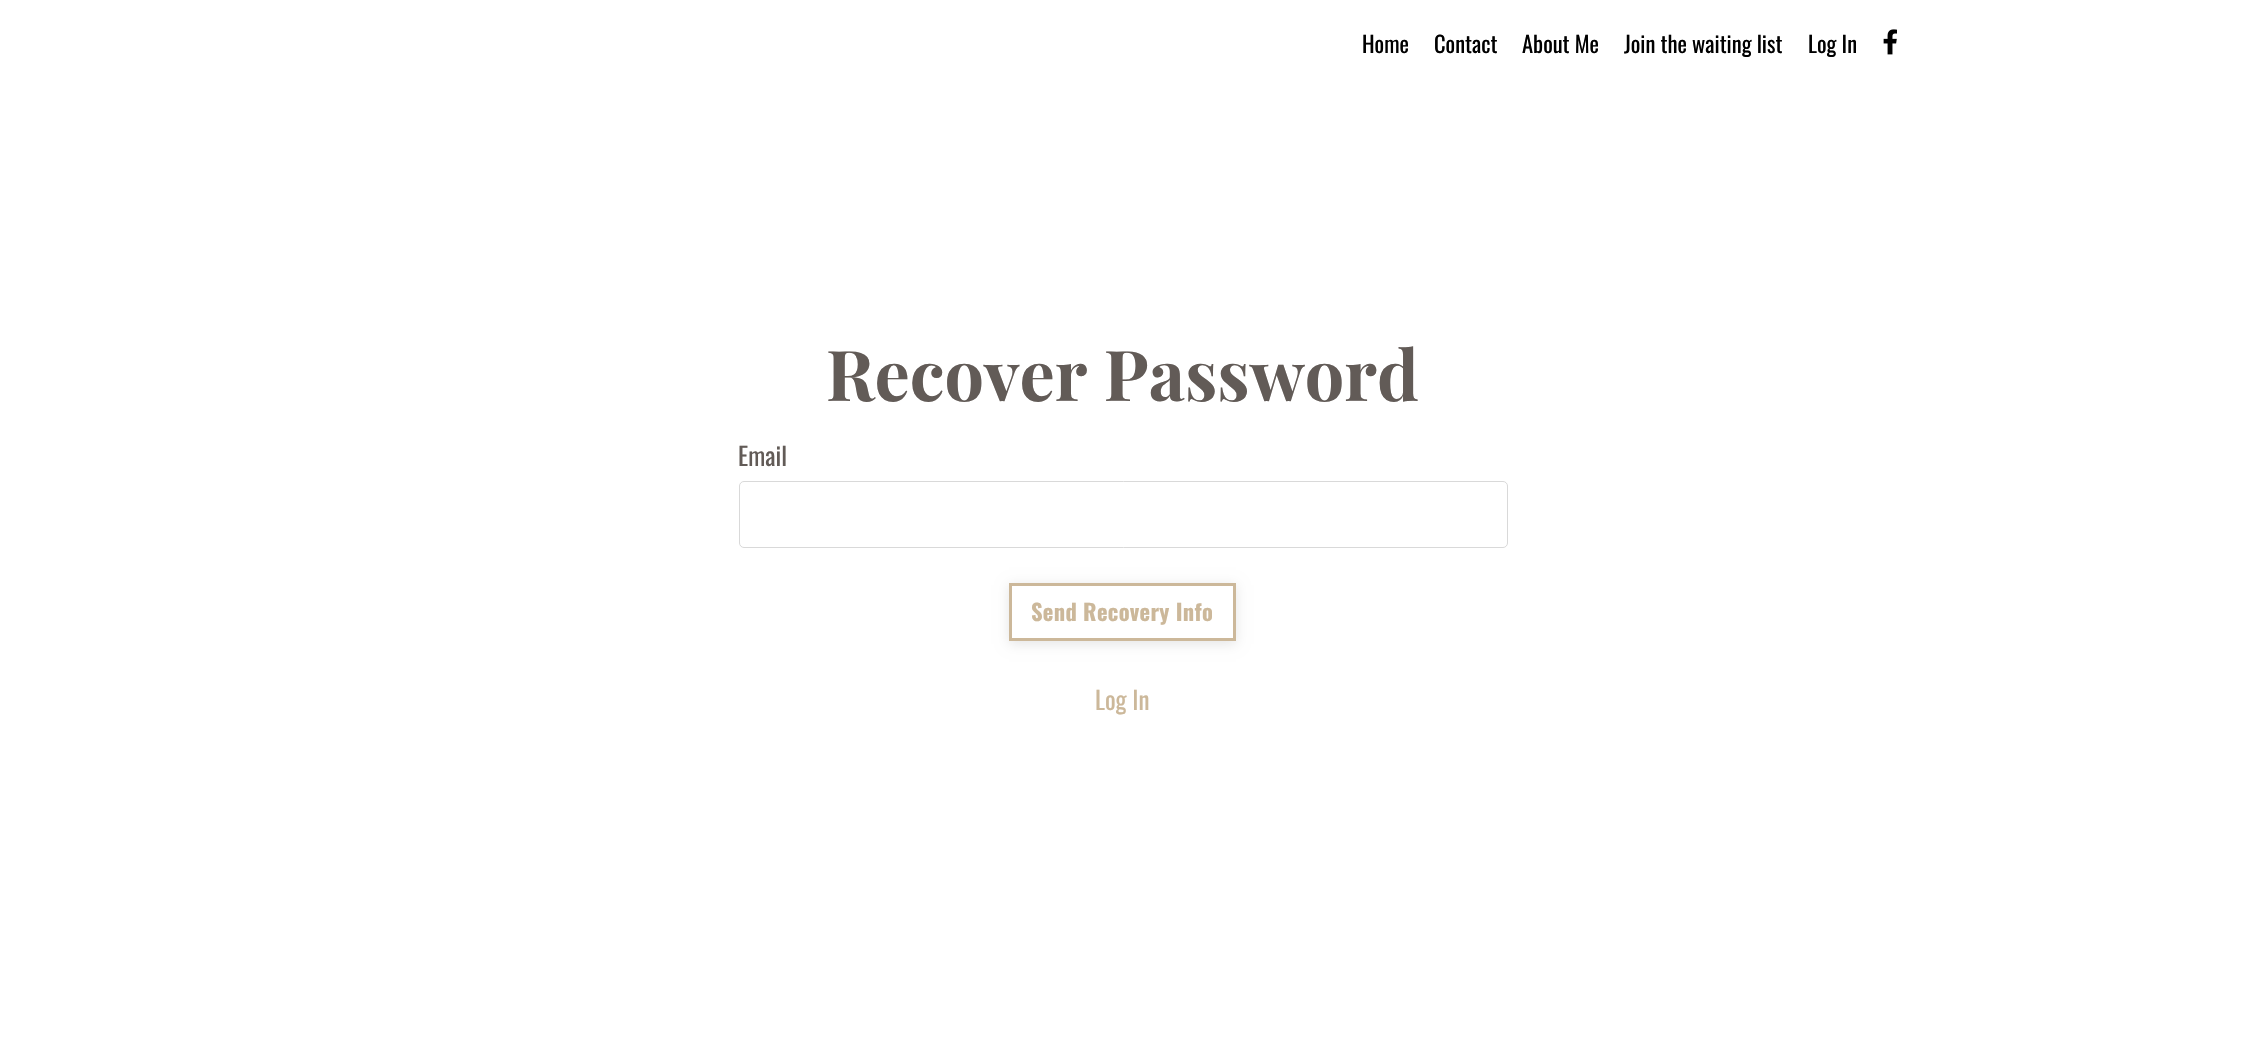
void draw(SkCanvas* c) {
SkPaint p;
p.setAntiAlias(true);
auto F=[&](const char* family, int weight, float size, bool italic = false){SkFontStyle style(weight, SkFontStyle::kNormal_Width,italic ? SkFontStyle::kItalic_Slant : SkFontStyle::kUpright_Slant);SkFont result(fontMgr->matchFamilyStyle(family, style), size);result.setSubpixel(true);return result;};
auto T=[&](const char* s, float x, float y, const SkFont& font){c->drawString(s, x, y, font, p);};
auto L=[&](const char* s, float x, float y, const SkFont& font, const SkPaint& ink, float letter, float word){std::vector<SkGlyphID> glyphs(font.countText(s, strlen(s), SkTextEncoding::kUTF8));std::vector<float> xs(glyphs.size());font.textToGlyphs(s, strlen(s), SkTextEncoding::kUTF8, glyphs);font.getXPos(glyphs, xs, x);float extra = 0;for (size_t i = 0; i < glyphs.size(); i++) {xs[i] += extra;extra += letter + word * (glyphs[i] == font.unicharToGlyph(' '));}c->drawTextBlob(SkTextBlob::MakeFromPosHGlyphs(glyphs, xs, y, font), 0, 0, ink);};
auto I=[&](const char* path, float x, float y, float w, float h){auto image = SkImages::DeferredFromEncodedData(SkData::MakeFromFileName(path));c->drawImageRect(image, SkRect::MakeXYWH(x, y, w, h), SkSamplingOptions());};
auto P=[&](const char* data, bool evenOdd = false){SkPath result = *SkParsePath::FromSVGString(data);if (evenOdd) result.setFillType(SkPathFillType::kEvenOdd);return result;};
c->clear(0xffffffff);
auto f1 = F("Oswald",400,22.5);
p.setColor(0xff000000);
T("Home",1362,53,f1);
T("Contact",1434,53,f1);
T("About Me",1522,53,f1);
T("Join the waiting list",1624,53,f1);
T("Log In",1808,53,f1);
I("1.png",1883,29,14,26);
auto f2 = F("Playfair Display",700,70);
p.setColor(0xff625b57);
T("Recover Password",826,401,f2);
auto f3 = F("Oswald",400,25);
T("Email",738,466,f3);
p.setStroke(true);
p.setStrokeWidth(1);
p.setColor(0xffd9d9d9);
c->drawRoundRect(SkRect::MakeXYWH(739.5,481.5,768,66),4.5,4.5,p);
c->save();
c->clipPath(P("M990 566h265v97h-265zm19 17h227v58h-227z",true),true);
p.setStroke(false);
p.setColor(0x1a000000);
p.setMaskFilter(SkMaskFilter::MakeBlur(kNormal_SkBlurStyle, 6));
c->drawRect(SkRect::MakeXYWH(1009,585,227,59),p);
p.setMaskFilter(nullptr);
c->restore();
p.setStroke(true);
p.setStrokeWidth(3);
p.setColor(0xffccb89a);
c->drawRect(SkRect::MakeXYWH(1010.5,584.5,224,55),p);
auto f4 = F("Oswald",700,22.5);
p.setStroke(false);
L("Send Recovery Info",1031,621,f4,p,.3,0);
T("Log In",1095,710,f3);
}
